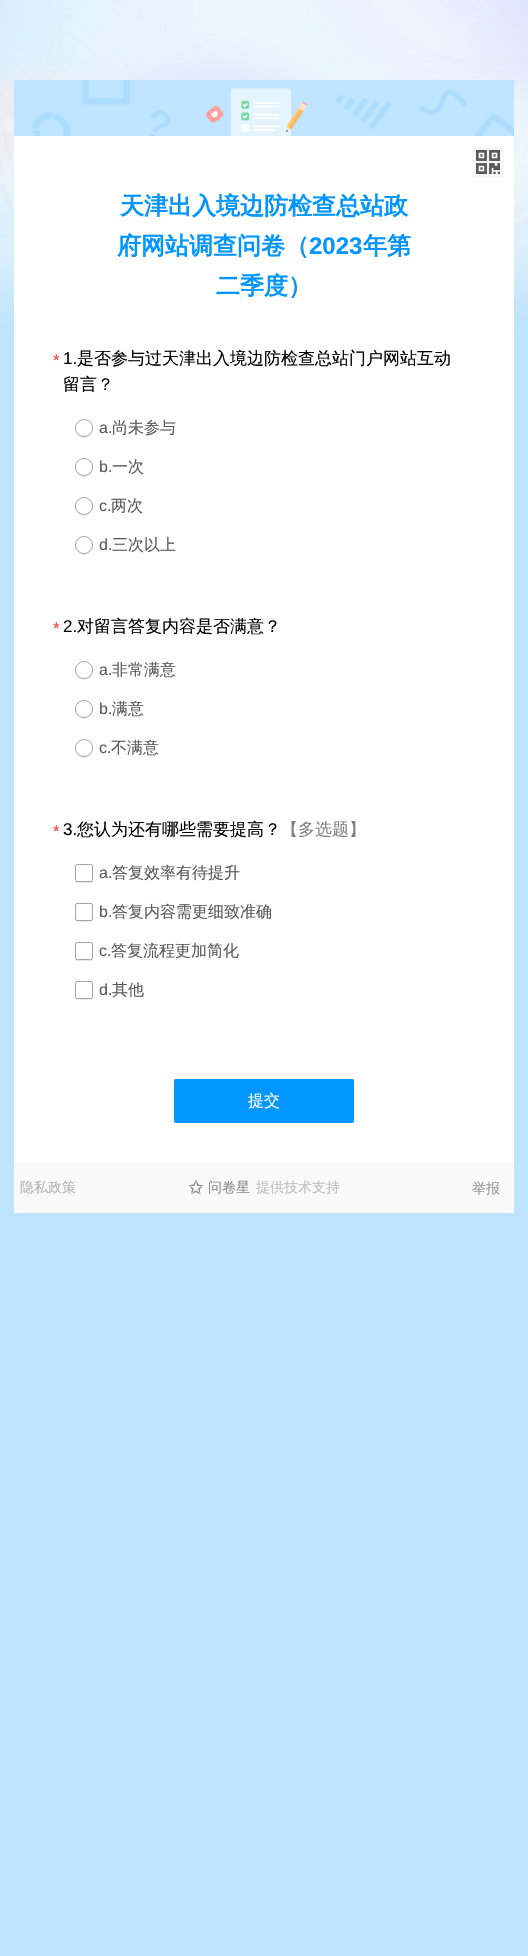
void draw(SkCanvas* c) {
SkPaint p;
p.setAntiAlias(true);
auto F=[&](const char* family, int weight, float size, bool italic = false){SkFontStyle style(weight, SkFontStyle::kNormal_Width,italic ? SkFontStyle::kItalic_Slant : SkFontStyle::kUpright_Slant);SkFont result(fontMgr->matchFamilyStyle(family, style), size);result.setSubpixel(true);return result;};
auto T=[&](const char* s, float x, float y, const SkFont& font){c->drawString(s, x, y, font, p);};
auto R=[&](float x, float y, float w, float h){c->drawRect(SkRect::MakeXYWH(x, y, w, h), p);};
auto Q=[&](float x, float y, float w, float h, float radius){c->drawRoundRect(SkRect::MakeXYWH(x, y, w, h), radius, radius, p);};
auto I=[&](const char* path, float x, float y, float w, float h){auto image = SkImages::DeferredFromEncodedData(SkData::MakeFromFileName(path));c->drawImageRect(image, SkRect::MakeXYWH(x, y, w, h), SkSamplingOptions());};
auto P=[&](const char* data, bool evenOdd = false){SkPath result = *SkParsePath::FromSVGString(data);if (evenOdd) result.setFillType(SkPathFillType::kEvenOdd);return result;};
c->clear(0xffbee4ff);
I("1.png",0,0,528,330);
p.setColor(0xffffffff);
R(14,136,500,1027);
I("2.png",14,80,500,56);
I("3.png",472,146,32,32);
auto f1 = F("WenQuanYi Zen Hei",700,24);
p.setColor(0xff0095ff);
T("天津出入境边防检查总站政",120,214,f1);
T("府网站调查问卷（",117,254,f1);
auto f2 = F("Liberation Sans",700,24);
T("2023",309,254,f2);
T("年第",363,254,f1);
T("二季度）",216,294,f1);
auto f3 = F("Liberation Sans",400,17);
p.setColor(0xffff4040);
T("*",53,366,f3);
p.setColor(0xff000000);
T("1.",63,364,f3);
auto f4 = F("WenQuanYi Zen Hei",500,17);
T("是否参与过天津出入境边防检查总站门户网站互动",77,364,f4);
T("留言？",63,390,f4);
p.setColor(0xffebebeb);
c->drawPath(P("M93 428.5c-.5 11-17.5 11-18 0c-.5 12.5 18.5 12.5 18 0z"),p);
p.setColor(0xffffffff);
c->drawCircle(84,428,8.5,p);
p.setStroke(true);
p.setStrokeWidth(1);
p.setColor(0xffa6a6a6);
c->drawCircle(84,428,8.5,p);
auto f5 = F("Liberation Sans",400,16);
p.setStroke(false);
p.setColor(0xff595959);
T("a.",99,433,f5);
auto f6 = F("WenQuanYi Zen Hei",500,16);
T("尚未参与",112,433,f6);
p.setColor(0xffebebeb);
c->drawPath(P("M93 467.5c-.5 11-17.5 11-18 0c-.5 12.5 18.5 12.5 18 0z"),p);
p.setColor(0xffffffff);
c->drawCircle(84,467,8.5,p);
p.setStroke(true);
p.setColor(0xffa6a6a6);
c->drawCircle(84,467,8.5,p);
p.setStroke(false);
p.setColor(0xff595959);
T("b.",99,472,f5);
T("一次",112,472,f6);
p.setColor(0xffebebeb);
c->drawPath(P("M93 506.5c-.5 11-17.5 11-18 0c-.5 12.5 18.5 12.5 18 0z"),p);
p.setColor(0xffffffff);
c->drawCircle(84,506,8.5,p);
p.setStroke(true);
p.setColor(0xffa6a6a6);
c->drawCircle(84,506,8.5,p);
p.setStroke(false);
p.setColor(0xff595959);
T("c.",99,511,f5);
T("两次",111,511,f6);
p.setColor(0xffebebeb);
c->drawPath(P("M75 545.5c-.5 12.5 18.5 12.5 18 0c-.5 11-17.5 11-18 0z"),p);
p.setColor(0xffffffff);
c->drawCircle(84,545,8.5,p);
p.setStroke(true);
p.setColor(0xffa6a6a6);
c->drawCircle(84,545,8.5,p);
p.setStroke(false);
p.setColor(0xff595959);
T("d.",99,550,f5);
T("三次以上",112,550,f6);
p.setColor(0xffff4040);
T("*",53,634,f3);
p.setColor(0xff000000);
T("2.",63,632,f3);
T("对留言答复内容是否满意？",77,632,f4);
p.setColor(0xffebebeb);
c->drawPath(P("M75 670.5c-.5 12.5 18.5 12.5 18 0c-.5 11-17.5 11-18 0z"),p);
p.setColor(0xffffffff);
c->drawCircle(84,670,8.5,p);
p.setStroke(true);
p.setColor(0xffa6a6a6);
c->drawCircle(84,670,8.5,p);
p.setStroke(false);
p.setColor(0xff595959);
T("a.",99,675,f5);
T("非常满意",112,675,f6);
p.setColor(0xffebebeb);
c->drawPath(P("M75 709.5c-.5 12.5 18.5 12.5 18 0c-.5 11-17.5 11-18 0z"),p);
p.setColor(0xffffffff);
c->drawCircle(84,709,8.5,p);
p.setStroke(true);
p.setColor(0xffa6a6a6);
c->drawCircle(84,709,8.5,p);
p.setStroke(false);
p.setColor(0xff595959);
T("b.",99,714,f5);
T("满意",112,714,f6);
p.setColor(0xffebebeb);
c->drawPath(P("M75 748.5c-.5 12.5 18.5 12.5 18 0c-.5 11-17.5 11-18 0z"),p);
p.setColor(0xffffffff);
c->drawCircle(84,748,8.5,p);
p.setStroke(true);
p.setColor(0xffa6a6a6);
c->drawCircle(84,748,8.5,p);
p.setStroke(false);
p.setColor(0xff595959);
T("c.",99,753,f5);
T("不满意",111,753,f6);
p.setColor(0xffff4040);
T("*",53,837,f3);
p.setColor(0xff000000);
T("3.",63,835,f3);
T("您认为还有哪些需要提高？",77,835,f4);
p.setColor(0xff808080);
T("【多选题】",281,835,f4);
p.setColor(0xffebebeb);
c->drawPath(P("M75 880c0 3.5 1.5 3 4.5 3h9c3 0 4.5 .5 4.5-3c0 1-1 2-2 2h-14c-1 0-2-1-2-2z"),p);
p.setColor(0xffffffff);
c->drawRoundRect(SkRect::MakeXYWH(75.5,864.5,17,17),1.5,1.5,p);
p.setStroke(true);
p.setColor(0xffa6a6a6);
c->drawRoundRect(SkRect::MakeXYWH(75.5,864.5,17,17),1.5,1.5,p);
p.setStroke(false);
p.setColor(0xff595959);
T("a.",99,878,f5);
T("答复效率有待提升",112,878,f6);
p.setColor(0xffebebeb);
c->drawPath(P("M75 919c0 3.5 1.5 3 4.5 3h9c3 0 4.5 .5 4.5-3c0 1-1 2-2 2h-14c-1 0-2-1-2-2z"),p);
p.setColor(0xffffffff);
c->drawRoundRect(SkRect::MakeXYWH(75.5,903.5,17,17),1.5,1.5,p);
p.setStroke(true);
p.setColor(0xffa6a6a6);
c->drawRoundRect(SkRect::MakeXYWH(75.5,903.5,17,17),1.5,1.5,p);
p.setStroke(false);
p.setColor(0xff595959);
T("b.",99,917,f5);
T("答复内容需更细致准确",112,917,f6);
p.setColor(0xffebebeb);
c->drawPath(P("M75 958c0 3.5 1.5 3 4.5 3h9c3 0 4.5 .5 4.5-3c0 1-1 2-2 2h-14c-1 0-2-1-2-2z"),p);
p.setColor(0xffffffff);
c->drawRoundRect(SkRect::MakeXYWH(75.5,942.5,17,17),1.5,1.5,p);
p.setStroke(true);
p.setColor(0xffa6a6a6);
c->drawRoundRect(SkRect::MakeXYWH(75.5,942.5,17,17),1.5,1.5,p);
p.setStroke(false);
p.setColor(0xff595959);
T("c.",99,956,f5);
T("答复流程更加简化",111,956,f6);
p.setColor(0xffebebeb);
c->drawPath(P("M75 997c0 3.5 1.5 3 4.5 3h9c3 0 4.5 .5 4.5-3c0 1-1 2-2 2h-14c-1 0-2-1-2-2z"),p);
p.setColor(0xffffffff);
c->drawRoundRect(SkRect::MakeXYWH(75.5,981.5,17,17),1.5,1.5,p);
p.setStroke(true);
p.setColor(0xffa6a6a6);
c->drawRoundRect(SkRect::MakeXYWH(75.5,981.5,17,17),1.5,1.5,p);
p.setStroke(false);
p.setColor(0xff595959);
T("d.",99,995,f5);
T("其他",112,995,f6);
p.setColor(0xff0095ff);
Q(174,1079,180,44,2);
p.setColor(0xffffffff);
T("提交",248,1106,f6);
p.setColor(0xfff9f9f9);
R(14,1163,500,50);
auto f7 = F("WenQuanYi Zen Hei",500,14);
p.setColor(0xffb3b3b3);
T("隐私政策",20,1192,f7);
I("4.png",188,1180,16,15);
p.setColor(0xff8c8c8c);
T("问卷星",208,1192,f7);
p.setColor(0xffbebebe);
T("提供技术支持",256,1192,f7);
p.setColor(0xff999999);
T("举报",472,1193,f7);
}
